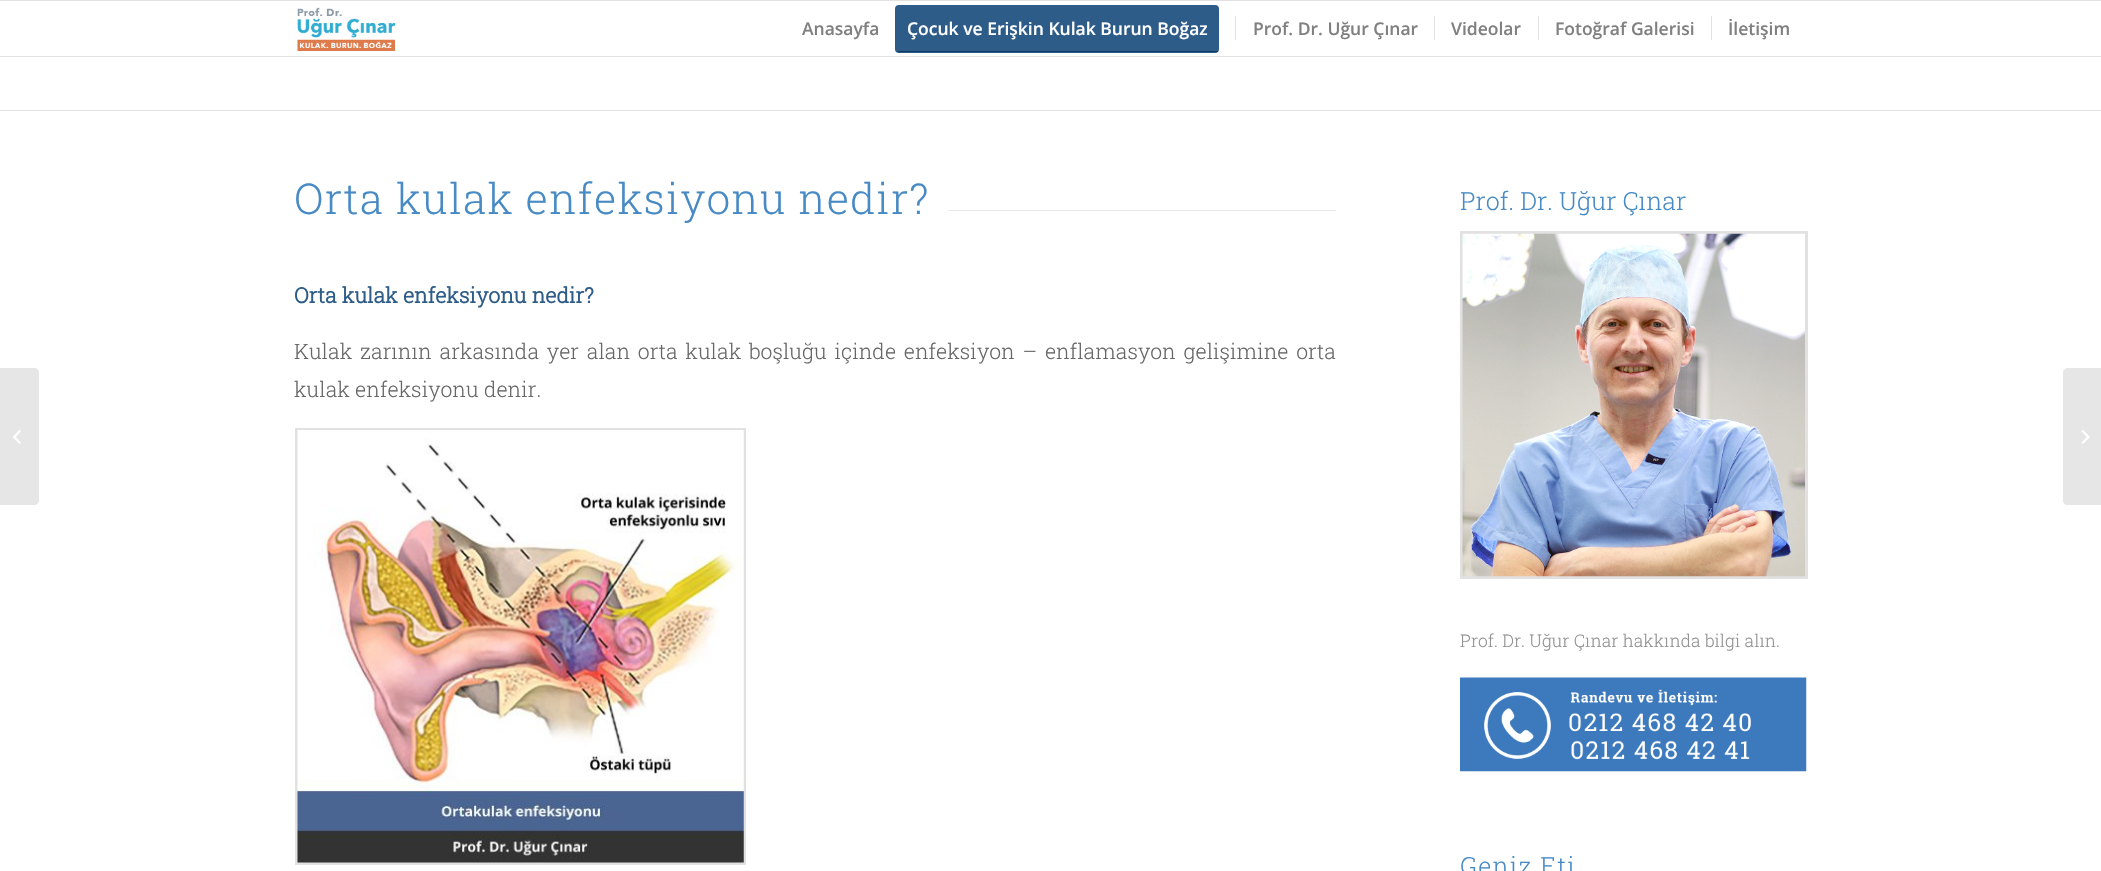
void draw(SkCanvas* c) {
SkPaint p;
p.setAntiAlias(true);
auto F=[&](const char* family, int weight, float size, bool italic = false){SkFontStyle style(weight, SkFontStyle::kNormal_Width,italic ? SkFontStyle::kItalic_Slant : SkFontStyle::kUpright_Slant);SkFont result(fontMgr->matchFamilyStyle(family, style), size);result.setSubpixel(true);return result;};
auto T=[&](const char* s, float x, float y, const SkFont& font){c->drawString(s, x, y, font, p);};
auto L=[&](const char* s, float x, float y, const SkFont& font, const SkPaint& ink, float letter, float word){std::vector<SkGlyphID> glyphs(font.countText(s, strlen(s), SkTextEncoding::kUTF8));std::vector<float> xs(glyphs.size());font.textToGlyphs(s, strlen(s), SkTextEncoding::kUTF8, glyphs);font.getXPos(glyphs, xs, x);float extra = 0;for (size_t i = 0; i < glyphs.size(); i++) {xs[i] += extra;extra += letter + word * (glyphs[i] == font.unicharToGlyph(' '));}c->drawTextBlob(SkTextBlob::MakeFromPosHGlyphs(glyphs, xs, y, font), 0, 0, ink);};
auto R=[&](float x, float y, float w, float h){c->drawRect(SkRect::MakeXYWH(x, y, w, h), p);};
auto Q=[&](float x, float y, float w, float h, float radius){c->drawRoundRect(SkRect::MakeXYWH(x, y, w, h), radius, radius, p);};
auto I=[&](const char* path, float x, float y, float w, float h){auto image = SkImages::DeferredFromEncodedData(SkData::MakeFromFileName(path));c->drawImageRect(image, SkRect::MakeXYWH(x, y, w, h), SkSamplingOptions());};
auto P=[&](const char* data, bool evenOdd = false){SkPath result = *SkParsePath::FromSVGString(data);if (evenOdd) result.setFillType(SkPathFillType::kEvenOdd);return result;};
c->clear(0xffffffff);
p.setColor(0xffe1e1e1);
R(0,0,2101,1);
R(0,56,2101,1);
I("1.png",297,7,99,44);
auto f1 = F("Open Sans",600,17.5);
p.setColor(0xff808080);
T("Anasayfa",802,35,f1);
p.setColor(0xff2d5c88);
Q(895,5,324,48,4);
p.setColor(0xffffffff);
T("Çocuk ve Erişkin Kulak Burun Boğaz",907,35,f1);
p.setColor(0xff0b3a66);
R(898,51,320,1);
p.setColor(0xff808080);
T("Prof. Dr. Uğur Çınar",1253,35,f1);
p.setColor(0xffe1e1e1);
R(1235,16,1,24);
p.setColor(0xff808080);
T("Videolar",1451,35,f1);
p.setColor(0xffe1e1e1);
R(1434,16,1,24);
p.setColor(0xff808080);
T("Fotoğraf Galerisi",1555,35,f1);
p.setColor(0xffe1e1e1);
R(1538,16,1,24);
p.setColor(0xff808080);
T("İletişim",1728,35,f1);
p.setColor(0xffe1e1e1);
R(1711,16,1,24);
p.setColor(0xffe6e6e6);
c->drawPath(P("M0 368h34c3 0 5 2 5 5v127c0 3-2 5-5 5h-34z"),p);
I("2.png",13,430,8,14);
p.setColor(0xffe1e1e1);
R(0,110,2101,1);
auto f2 = F("Roboto Slab",300,42.5);
p.setColor(0xff478ac4);
L("Orta kulak enfeksiyonu nedir?",294,214,f2,p,1.25,0);
p.setColor(0xffe8e8e8);
R(949,210,387,1);
auto f3 = F("Roboto Slab",700,21.25);
p.setColor(0xff2d5c88);
T("Orta kulak enfeksiyonu nedir?",294,303,f3);
auto f4 = F("Roboto Slab",300,21.25);
p.setColor(0xff666666);
L("Kulak zarının arkasında yer alan orta kulak boşluğu içinde enfeksiyon – enflamasyon gelişimine orta",294,359,f4,p,0,2.6);
T("kulak enfeksiyonu denir.",294,397,f4);
p.setStroke(true);
p.setStrokeWidth(3);
p.setColor(0xffe1e1e1);
c->drawRect(SkRect::MakeXYWH(296.5,429.5,448,434),p);
I("3.png",297,430,447,433);
auto f5 = F("Roboto Slab",300,25);
p.setStroke(false);
p.setColor(0xff478ac4);
T("Prof. Dr. Uğur Çınar",1460,210,f5);
p.setStroke(true);
p.setColor(0xffe1e1e1);
c->drawRect(SkRect::MakeXYWH(1461.5,232.5,345,345),p);
I("4.png",1462,233,343,344);
auto f6 = F("Roboto Slab",300,17.5);
p.setStroke(false);
p.setColor(0xff919191);
T("Prof. Dr. Uğur Çınar hakkında bilgi alın.",1460,647,f6);
I("5.png",1460,677,347,95);
p.setColor(0xff478ac4);
L("Geniz Eti",1460,875,f5,p,1.25,0);
p.setColor(0xffe6e6e6);
c->drawPath(P("M2068 368h33v137h-33c-3 0-5-2-5-5v-127c0-3 2-5 5-5z"),p);
I("6.png",2081,430,9,14);
}
